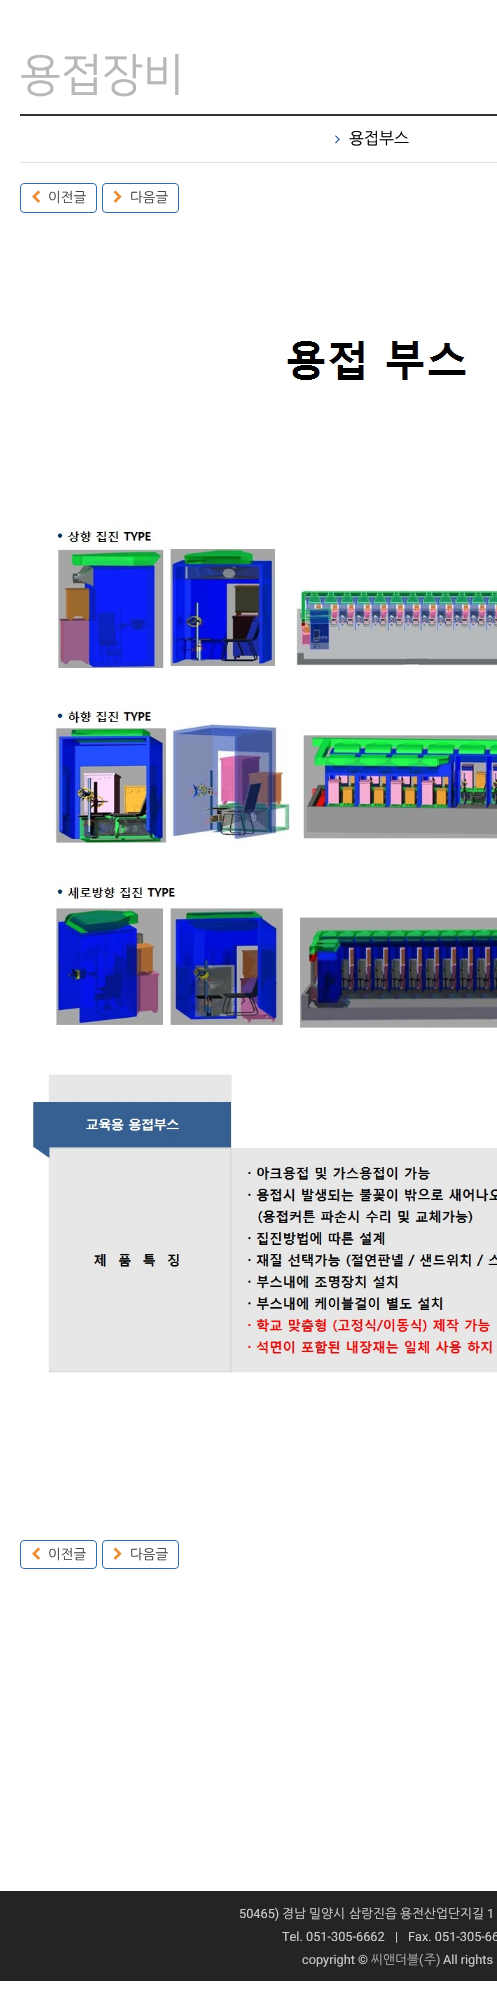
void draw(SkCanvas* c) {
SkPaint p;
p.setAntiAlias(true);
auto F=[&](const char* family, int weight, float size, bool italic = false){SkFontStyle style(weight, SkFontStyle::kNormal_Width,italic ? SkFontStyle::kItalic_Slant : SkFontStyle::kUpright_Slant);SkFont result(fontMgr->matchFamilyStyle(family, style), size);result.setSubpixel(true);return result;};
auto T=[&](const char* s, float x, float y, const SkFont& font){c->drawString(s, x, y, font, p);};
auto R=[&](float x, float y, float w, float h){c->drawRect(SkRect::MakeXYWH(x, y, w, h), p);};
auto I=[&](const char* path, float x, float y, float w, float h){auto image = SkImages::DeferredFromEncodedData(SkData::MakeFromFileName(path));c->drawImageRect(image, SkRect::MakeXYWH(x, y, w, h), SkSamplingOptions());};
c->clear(0xffffffff);
auto f1 = F("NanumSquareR",400,45);
p.setColor(0xffb8b8b8);
T("용접장비",20,89,f1);
p.setColor(0xff333333);
R(20,114,477,2);
p.setColor(0xffe0e0e0);
R(20,162,477,1);
I("1.png",335,135,5,9);
auto f2 = F("NanumGothic",400,16);
p.setColor(0xff000000);
T("용접부스",349,144,f2);
p.setStroke(true);
p.setStrokeWidth(1);
p.setColor(0xff326ca6);
c->drawRoundRect(SkRect::MakeXYWH(20.5,183.5,76,29),3.5,3.5,p);
I("2.png",32,190,8,13);
auto f3 = F("NanumGothic",400,13.5);
p.setStroke(false);
p.setColor(0xff444444);
T("이전글",48,202,f3);
p.setStroke(true);
p.setColor(0xff326ca6);
c->drawRoundRect(SkRect::MakeXYWH(102.5,183.5,76,29),3.5,3.5,p);
I("3.png",113,190,9,13);
p.setStroke(false);
p.setColor(0xff444444);
T("다음글",130,202,f3);
I("4.png",285,340,182,42);
I("5.png",31,523,466,850);
p.setStroke(true);
p.setColor(0xff326ca6);
c->drawRoundRect(SkRect::MakeXYWH(20.5,1540.5,76,28),3.5,3.5,p);
I("2.png",32,1547,8,13);
p.setStroke(false);
p.setColor(0xff444444);
T("이전글",48,1559,f3);
p.setStroke(true);
p.setColor(0xff326ca6);
c->drawRoundRect(SkRect::MakeXYWH(102.5,1540.5,76,28),3.5,3.5,p);
I("3.png",113,1547,9,13);
p.setStroke(false);
p.setColor(0xff444444);
T("다음글",130,1559,f3);
p.setColor(0xff232426);
R(0,1891,497,90);
auto f4 = F("Roboto",400,12.75);
p.setColor(0xffcccccc);
T("50465)",239,1918,f4);
auto f5 = F("NanumGothic",400,12.75);
T("경남",282,1918,f5);
T("밀양시",309,1918,f5);
T("삼랑진읍",349,1918,f5);
T("용전산업단지길",400,1918,f5);
T("1",487,1918,f4);
T("Tel. 051-305-6662",282,1941,f4);
T("|",395,1941,f4);
T("Fax. 051-305-66",408,1941,f4);
T("copyright ©",302,1964,f4);
p.setColor(0xffaaaaaa);
T("씨앤더블",371,1964,f5);
T("(",419,1964,f4);
T("주",424,1964,f5);
T(")",436,1964,f4);
p.setColor(0xffcccccc);
T("All rights",443,1964,f4);
}
